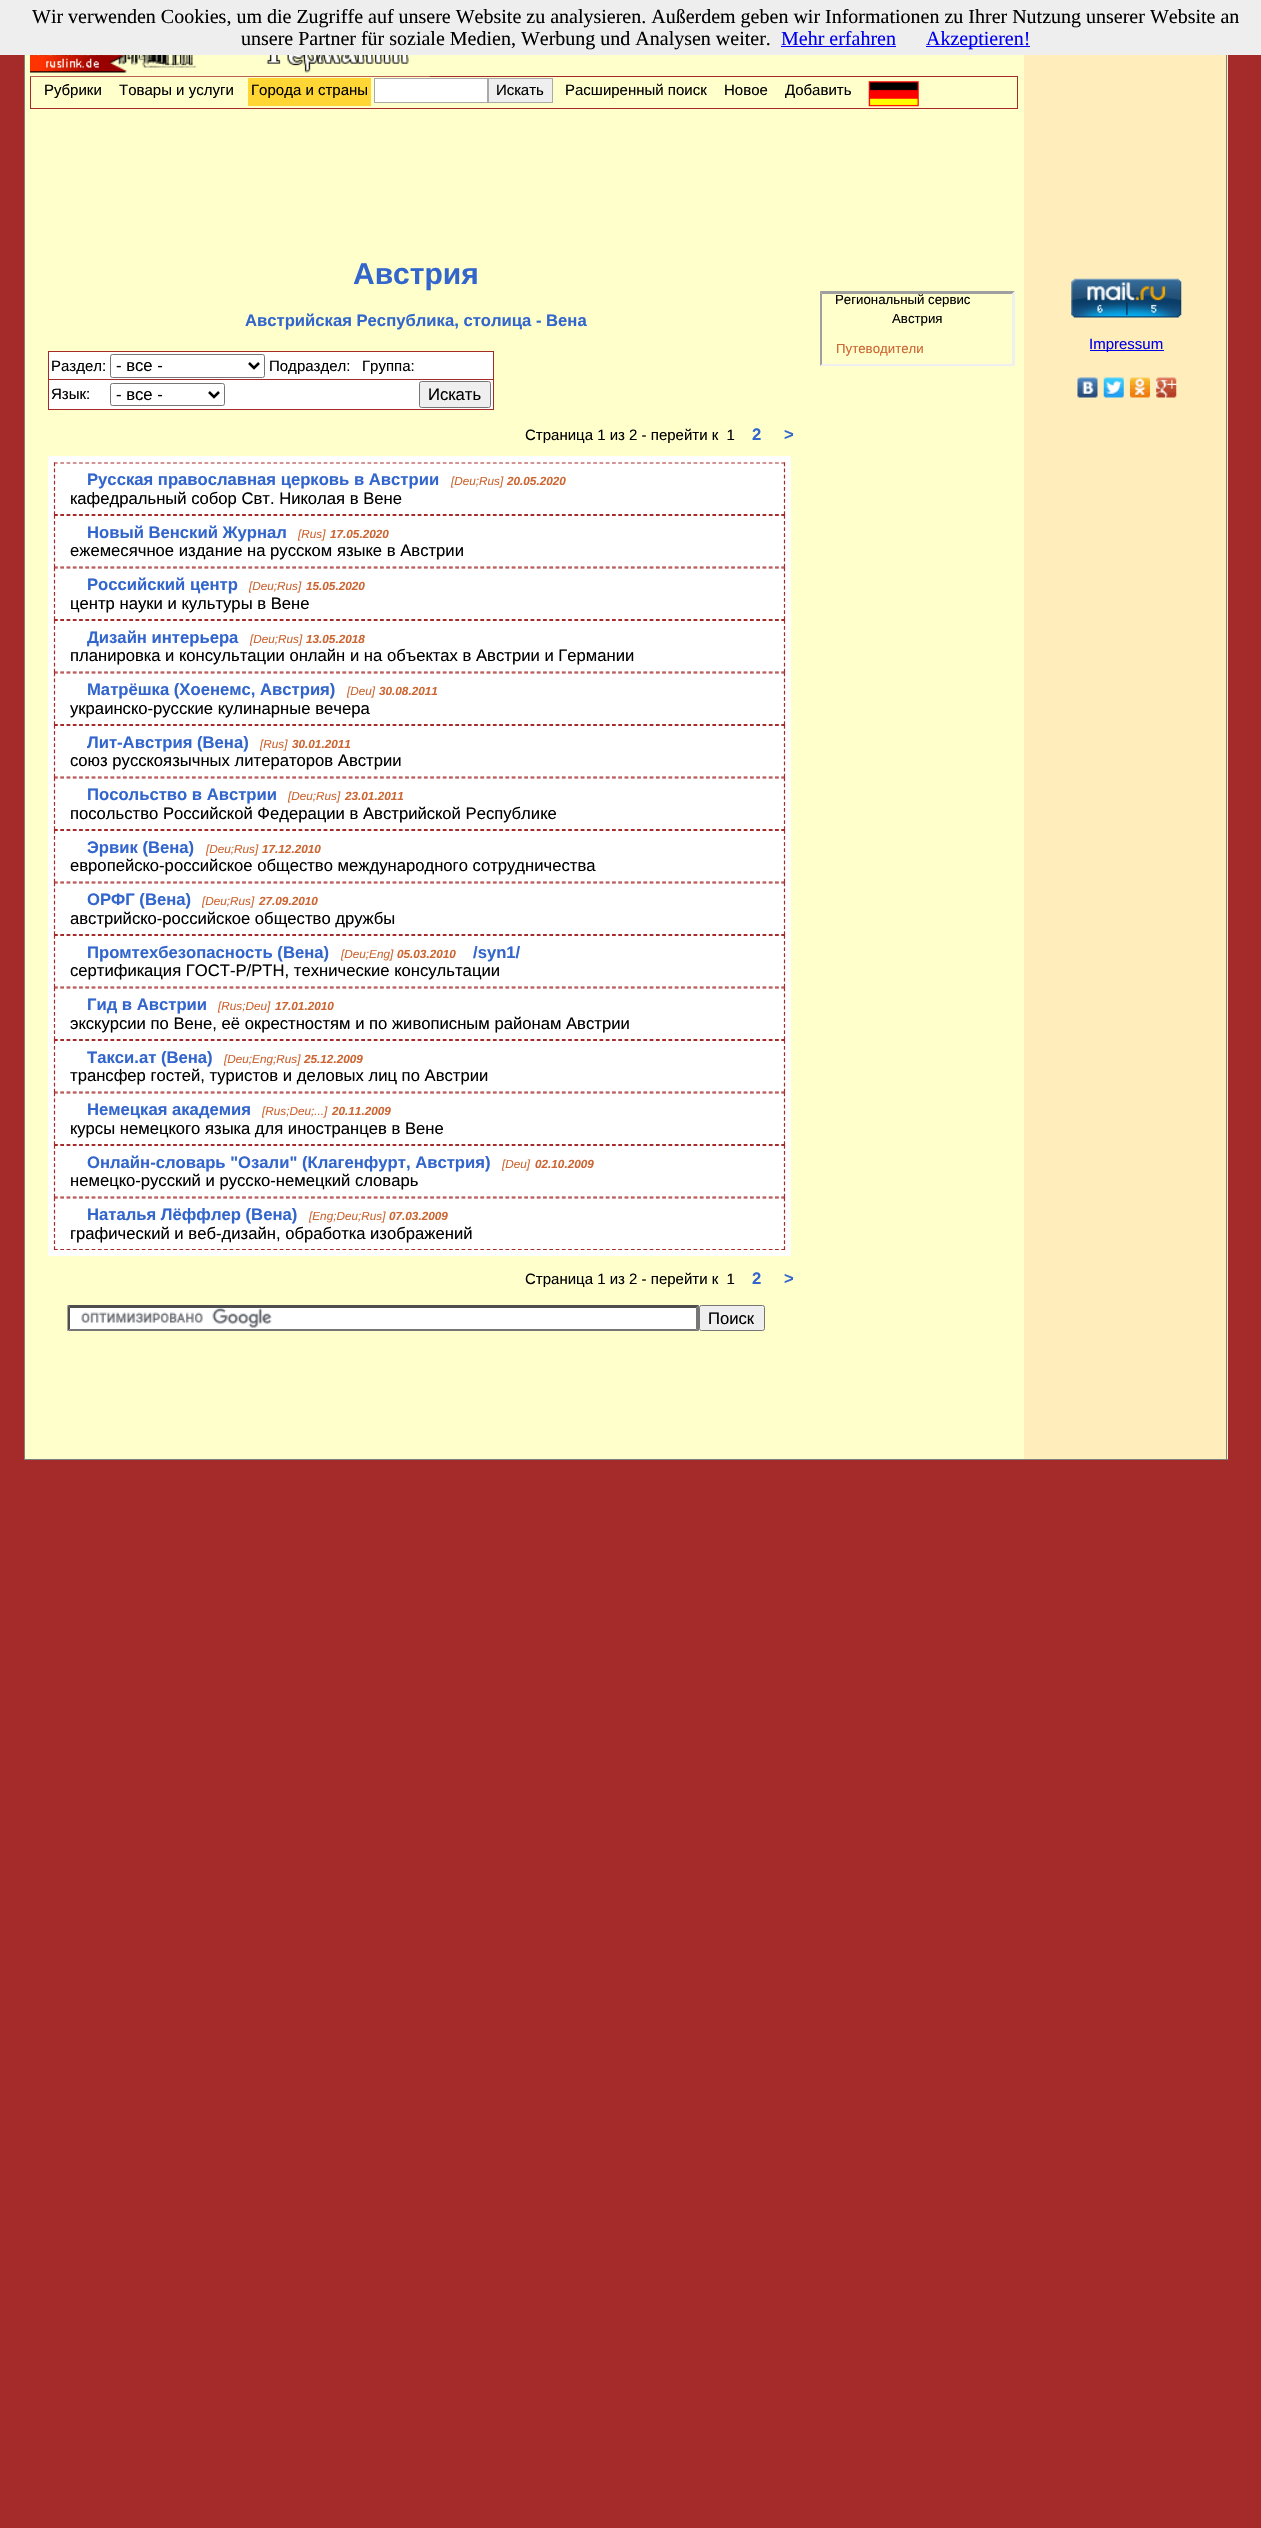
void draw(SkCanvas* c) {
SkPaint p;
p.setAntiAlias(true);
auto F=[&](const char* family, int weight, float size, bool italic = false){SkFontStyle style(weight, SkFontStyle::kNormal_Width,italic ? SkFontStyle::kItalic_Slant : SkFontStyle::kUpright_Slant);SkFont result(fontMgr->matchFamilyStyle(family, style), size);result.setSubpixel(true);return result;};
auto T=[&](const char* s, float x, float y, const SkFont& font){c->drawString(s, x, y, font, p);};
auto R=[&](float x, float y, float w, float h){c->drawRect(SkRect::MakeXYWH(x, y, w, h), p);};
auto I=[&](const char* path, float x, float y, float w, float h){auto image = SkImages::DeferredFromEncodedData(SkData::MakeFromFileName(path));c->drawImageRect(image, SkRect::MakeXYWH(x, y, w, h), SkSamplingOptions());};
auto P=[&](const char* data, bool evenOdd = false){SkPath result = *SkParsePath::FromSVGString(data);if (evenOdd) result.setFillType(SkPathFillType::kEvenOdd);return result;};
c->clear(0xffa52a2a);
p.setColor(0xffeeeeee);
R(0,0,1261,55);
auto f1 = F("Liberation Serif",400,20);
p.setColor(0xff000000);
T("Wir verwenden Cookies, um die Zugriffe auf unsere Website zu analysieren. Außerdem geben wir Informationen zu Ihrer Nutzung unserer Website an",32,23,f1);
T("unsere Partner für soziale Medien, Werbung und Analysen weiter.",241,45,f1);
p.setColor(0xff0000ee);
T("Mehr erfahren",781,45,f1);
R(781,46,115,1);
R(926,46,104,1);
T("Akzeptieren!",926,45,f1);
p.setColor(0xffffffcc);
R(25,55,999,1404);
p.setColor(0xffffeebb);
R(1024,55,204,1404);
p.setColor(0xff808080);
R(1226,55,1,1405);
R(24,1459,1204,1);
R(24,55,1,1405);
p.setStroke(true);
p.setStrokeWidth(1);
p.setColor(0xffa52a2a);
c->drawRect(SkRect::MakeXYWH(30.5,76.5,987,32),p);
I("1.png",30,55,400,22);
auto f2 = F("Liberation Sans",400,15);
p.setStroke(false);
p.setColor(0xff000000);
T("Рубрики",44,95,f2);
T("Товары и услуги",119,95,f2);
p.setColor(0xffffd633);
R(248,78,123,28);
p.setColor(0xff000000);
T("Города и страны",251,95,f2);
p.setColor(0xffffffff);
c->drawRect(SkRect::MakeXYWH(374.5,78.5,113,24),p);
p.setStroke(true);
p.setColor(0xffa9a9a9);
c->drawRect(SkRect::MakeXYWH(374.5,78.5,113,24),p);
p.setStroke(false);
p.setColor(0xffefefef);
c->drawRect(SkRect::MakeXYWH(488.5,78.5,64,24),p);
p.setStroke(true);
p.setColor(0xffa9a9a9);
c->drawRect(SkRect::MakeXYWH(488.5,78.5,64,24),p);
p.setStroke(false);
p.setColor(0xff000000);
T("Искать",496,95,f2);
T("Расширенный поиск",565,95,f2);
T("Новое",724,95,f2);
T("Добавить",785,95,f2);
I("2.png",868,81,51,26);
auto f3 = F("Liberation Sans",700,30);
p.setColor(0xff3366cc);
T("Австрия",353,284,f3);
auto f4 = F("Liberation Sans",700,16.65);
T("Австрийская Республика, столица - Вена",245,326,f4);
p.setColor(0xffffffff);
R(49,352,444,57);
p.setColor(0xffa52a2a);
R(48,351,446,1);
R(493,351,1,59);
R(48,409,446,1);
R(48,351,1,59);
p.setColor(0xff000000);
T("Раздел:",51,371,f2);
p.setStroke(true);
p.setColor(0xff767676);
c->drawRoundRect(SkRect::MakeXYWH(110.5,354.5,154,23),2,2,p);
p.setStrokeWidth(2.5);
p.setColor(0xff000000);
c->drawPath(P("M249 363l5 5l5-5"),p);
auto f5 = F("Liberation Sans",400,16.65);
p.setStroke(false);
T("- все -",116,371,f5);
T("Подраздел:",269,371,f2);
T("Группа:",362,371,f2);
T("Язык:",51,399,f2);
p.setStroke(true);
p.setStrokeWidth(1);
p.setColor(0xff767676);
c->drawRoundRect(SkRect::MakeXYWH(110.5,383.5,114,22),2,2,p);
p.setStrokeWidth(2.5);
p.setColor(0xff000000);
c->drawPath(P("M209 392l5 5l5-5"),p);
p.setStroke(false);
T("- все -",116,400,f5);
p.setColor(0xffa52a2a);
R(48,379,446,1);
p.setColor(0xffefefef);
c->drawRoundRect(SkRect::MakeXYWH(419.5,381.5,71,26),2,2,p);
p.setStroke(true);
p.setStrokeWidth(1);
p.setColor(0xff767676);
c->drawRoundRect(SkRect::MakeXYWH(419.5,381.5,71,26),2,2,p);
p.setStroke(false);
p.setColor(0xff000000);
T("Искать",428,400,f5);
T("Страница 1 из 2 - перейти к  1",525,440,f2);
p.setColor(0xff3366cc);
T("2",752,440,f4);
T(">",784,440,f4);
p.setColor(0xffffffff);
R(48,456,743,800);
p.setStroke(true);
p.setStrokeWidth(1.2);
p.setColor(0xffa52a2a);
p.setPathEffect(SkDashPathEffect::Make({{3.75f,2.52f}}, 0));
c->drawPath(P("M54 463h731"),p);
p.setPathEffect(nullptr);
p.setPathEffect(SkDashPathEffect::Make({{3.75f,2.35f}}, 0));
c->drawPath(P("M784.5 462.5v52.5"),p);
p.setPathEffect(nullptr);
p.setPathEffect(SkDashPathEffect::Make({{3.75f,2.52f}}, 0));
c->drawPath(P("M54 514.5h731"),p);
p.setPathEffect(nullptr);
p.setPathEffect(SkDashPathEffect::Make({{3.75f,2.35f}}, 0));
c->drawPath(P("M54.5 462.5v52.5"),p);
p.setPathEffect(nullptr);
p.setStroke(false);
p.setColor(0xff3366cc);
T("Русская православная церковь в Австрии",87,485,f4);
auto f6 = F("Liberation Sans",400,11.75,true);
p.setColor(0xffcc6633);
T("[Deu;Rus]",451,485,f6);
auto f7 = F("Liberation Sans",700,11.75,true);
T("20.05.2020",507,485,f7);
p.setColor(0xff000000);
T("кафедральный собор Свт. Николая в Вене",70,504,f5);
p.setStroke(true);
p.setColor(0xffa52a2a);
p.setPathEffect(SkDashPathEffect::Make({{3.75f,2.52f}}, 0));
c->drawPath(P("M54 515.5h731"),p);
p.setPathEffect(nullptr);
p.setPathEffect(SkDashPathEffect::Make({{3.75f,2.35f}}, 0));
c->drawPath(P("M784.5 515v52.5"),p);
p.setPathEffect(nullptr);
p.setPathEffect(SkDashPathEffect::Make({{3.75f,2.52f}}, 0));
c->drawPath(P("M54 567h731"),p);
p.setPathEffect(nullptr);
p.setPathEffect(SkDashPathEffect::Make({{3.75f,2.35f}}, 0));
c->drawPath(P("M54.5 515v52.5"),p);
p.setPathEffect(nullptr);
p.setStroke(false);
p.setColor(0xff3366cc);
T("Новый Венский Журнал",87,538,f4);
p.setColor(0xffcc6633);
T("[Rus]",298,538,f6);
T("17.05.2020",330,538,f7);
p.setColor(0xff000000);
T("ежемесячное издание на русском языке в Австрии",70,556,f5);
p.setStroke(true);
p.setColor(0xffa52a2a);
p.setPathEffect(SkDashPathEffect::Make({{3.75f,2.52f}}, 0));
c->drawPath(P("M54 568h731"),p);
p.setPathEffect(nullptr);
p.setPathEffect(SkDashPathEffect::Make({{3.75f,2.35f}}, 0));
c->drawPath(P("M784.5 567.5v52.5"),p);
p.setPathEffect(nullptr);
p.setPathEffect(SkDashPathEffect::Make({{3.75f,2.52f}}, 0));
c->drawPath(P("M54 619.5h731"),p);
p.setPathEffect(nullptr);
p.setPathEffect(SkDashPathEffect::Make({{3.75f,2.35f}}, 0));
c->drawPath(P("M54.5 567.5v52.5"),p);
p.setPathEffect(nullptr);
p.setStroke(false);
p.setColor(0xff3366cc);
T("Российский центр",87,590,f4);
p.setColor(0xffcc6633);
T("[Deu;Rus]",249,590,f6);
T("15.05.2020",306,590,f7);
p.setColor(0xff000000);
T("центр науки и культуры в Вене",70,609,f5);
p.setStroke(true);
p.setColor(0xffa52a2a);
p.setPathEffect(SkDashPathEffect::Make({{3.75f,2.52f}}, 0));
c->drawPath(P("M54 620.5h731"),p);
p.setPathEffect(nullptr);
p.setPathEffect(SkDashPathEffect::Make({{3.75f,2.35f}}, 0));
c->drawPath(P("M784.5 620v52.5"),p);
p.setPathEffect(nullptr);
p.setPathEffect(SkDashPathEffect::Make({{3.75f,2.52f}}, 0));
c->drawPath(P("M54 672h731"),p);
p.setPathEffect(nullptr);
p.setPathEffect(SkDashPathEffect::Make({{3.75f,2.35f}}, 0));
c->drawPath(P("M54.5 620v52.5"),p);
p.setPathEffect(nullptr);
p.setStroke(false);
p.setColor(0xff3366cc);
T("Дизайн интерьера",87,643,f4);
p.setColor(0xffcc6633);
T("[Deu;Rus]",250,643,f6);
T("13.05.2018",306,643,f7);
p.setColor(0xff000000);
T("планировка и консультации онлайн и на объектах в Австрии и Германии",70,661,f5);
p.setStroke(true);
p.setColor(0xffa52a2a);
p.setPathEffect(SkDashPathEffect::Make({{3.75f,2.52f}}, 0));
c->drawPath(P("M54 673h731"),p);
p.setPathEffect(nullptr);
p.setPathEffect(SkDashPathEffect::Make({{3.75f,2.35f}}, 0));
c->drawPath(P("M784.5 672.5v52.5"),p);
p.setPathEffect(nullptr);
p.setPathEffect(SkDashPathEffect::Make({{3.75f,2.52f}}, 0));
c->drawPath(P("M54 724.5h731"),p);
p.setPathEffect(nullptr);
p.setPathEffect(SkDashPathEffect::Make({{3.75f,2.35f}}, 0));
c->drawPath(P("M54.5 672.5v52.5"),p);
p.setPathEffect(nullptr);
p.setStroke(false);
p.setColor(0xff3366cc);
T("Матрёшка (Хоенемс, Австрия)",87,695,f4);
p.setColor(0xffcc6633);
T("[Deu]",347,695,f6);
T("30.08.2011",379,695,f7);
p.setColor(0xff000000);
T("украинско-русские кулинарные вечера",70,714,f5);
p.setStroke(true);
p.setColor(0xffa52a2a);
p.setPathEffect(SkDashPathEffect::Make({{3.75f,2.52f}}, 0));
c->drawPath(P("M54 725.5h731"),p);
p.setPathEffect(nullptr);
p.setPathEffect(SkDashPathEffect::Make({{3.75f,2.35f}}, 0));
c->drawPath(P("M784.5 725v52.5"),p);
p.setPathEffect(nullptr);
p.setPathEffect(SkDashPathEffect::Make({{3.75f,2.52f}}, 0));
c->drawPath(P("M54 777h731"),p);
p.setPathEffect(nullptr);
p.setPathEffect(SkDashPathEffect::Make({{3.75f,2.35f}}, 0));
c->drawPath(P("M54.5 725v52.5"),p);
p.setPathEffect(nullptr);
p.setStroke(false);
p.setColor(0xff3366cc);
T("Лит-Австрия (Вена)",87,748,f4);
p.setColor(0xffcc6633);
T("[Rus]",260,748,f6);
T("30.01.2011",292,748,f7);
p.setColor(0xff000000);
T("союз русскоязычных литераторов Австрии",70,766,f5);
p.setStroke(true);
p.setColor(0xffa52a2a);
p.setPathEffect(SkDashPathEffect::Make({{3.75f,2.52f}}, 0));
c->drawPath(P("M54 778h731"),p);
p.setPathEffect(nullptr);
p.setPathEffect(SkDashPathEffect::Make({{3.75f,2.35f}}, 0));
c->drawPath(P("M784.5 777.5v52.5"),p);
p.setPathEffect(nullptr);
p.setPathEffect(SkDashPathEffect::Make({{3.75f,2.52f}}, 0));
c->drawPath(P("M54 829.5h731"),p);
p.setPathEffect(nullptr);
p.setPathEffect(SkDashPathEffect::Make({{3.75f,2.35f}}, 0));
c->drawPath(P("M54.5 777.5v52.5"),p);
p.setPathEffect(nullptr);
p.setStroke(false);
p.setColor(0xff3366cc);
T("Посольство в Австрии",87,800,f4);
p.setColor(0xffcc6633);
T("[Deu;Rus]",288,800,f6);
T("23.01.2011",345,800,f7);
p.setColor(0xff000000);
T("посольство Российской Федерации в Австрийской Республике",70,819,f5);
p.setStroke(true);
p.setColor(0xffa52a2a);
p.setPathEffect(SkDashPathEffect::Make({{3.75f,2.52f}}, 0));
c->drawPath(P("M54 830.5h731"),p);
p.setPathEffect(nullptr);
p.setPathEffect(SkDashPathEffect::Make({{3.75f,2.35f}}, 0));
c->drawPath(P("M784.5 830v52.5"),p);
p.setPathEffect(nullptr);
p.setPathEffect(SkDashPathEffect::Make({{3.75f,2.52f}}, 0));
c->drawPath(P("M54 882h731"),p);
p.setPathEffect(nullptr);
p.setPathEffect(SkDashPathEffect::Make({{3.75f,2.35f}}, 0));
c->drawPath(P("M54.5 830v52.5"),p);
p.setPathEffect(nullptr);
p.setStroke(false);
p.setColor(0xff3366cc);
T("Эрвик (Вена)",87,853,f4);
p.setColor(0xffcc6633);
T("[Deu;Rus]",206,853,f6);
T("17.12.2010",262,853,f7);
p.setColor(0xff000000);
T("европейско-российское общество международного сотрудничества",70,871,f5);
p.setStroke(true);
p.setColor(0xffa52a2a);
p.setPathEffect(SkDashPathEffect::Make({{3.75f,2.52f}}, 0));
c->drawPath(P("M54 883h731"),p);
p.setPathEffect(nullptr);
p.setPathEffect(SkDashPathEffect::Make({{3.75f,2.35f}}, 0));
c->drawPath(P("M784.5 882.5v52.5"),p);
p.setPathEffect(nullptr);
p.setPathEffect(SkDashPathEffect::Make({{3.75f,2.52f}}, 0));
c->drawPath(P("M54 934.5h731"),p);
p.setPathEffect(nullptr);
p.setPathEffect(SkDashPathEffect::Make({{3.75f,2.35f}}, 0));
c->drawPath(P("M54.5 882.5v52.5"),p);
p.setPathEffect(nullptr);
p.setStroke(false);
p.setColor(0xff3366cc);
T("ОРФГ (Вена)",87,905,f4);
p.setColor(0xffcc6633);
T("[Deu;Rus]",202,905,f6);
T("27.09.2010",259,905,f7);
p.setColor(0xff000000);
T("австрийско-российское общество дружбы",70,924,f5);
p.setStroke(true);
p.setColor(0xffa52a2a);
p.setPathEffect(SkDashPathEffect::Make({{3.75f,2.52f}}, 0));
c->drawPath(P("M54 935.5h731"),p);
p.setPathEffect(nullptr);
p.setPathEffect(SkDashPathEffect::Make({{3.75f,2.35f}}, 0));
c->drawPath(P("M784.5 935v52.5"),p);
p.setPathEffect(nullptr);
p.setPathEffect(SkDashPathEffect::Make({{3.75f,2.52f}}, 0));
c->drawPath(P("M54 987h731"),p);
p.setPathEffect(nullptr);
p.setPathEffect(SkDashPathEffect::Make({{3.75f,2.35f}}, 0));
c->drawPath(P("M54.5 935v52.5"),p);
p.setPathEffect(nullptr);
p.setStroke(false);
p.setColor(0xff3366cc);
T("Промтехбезопасность (Вена)",87,958,f4);
p.setColor(0xffcc6633);
T("[Deu;Eng]",341,958,f6);
T("05.03.2010",397,958,f7);
p.setColor(0xff3366cc);
T("/syn1/",473,958,f4);
p.setColor(0xff000000);
T("сертификация ГОСТ-Р/РТН, технические консультации",70,976,f5);
p.setStroke(true);
p.setColor(0xffa52a2a);
p.setPathEffect(SkDashPathEffect::Make({{3.75f,2.52f}}, 0));
c->drawPath(P("M54 988h731"),p);
p.setPathEffect(nullptr);
p.setPathEffect(SkDashPathEffect::Make({{3.75f,2.35f}}, 0));
c->drawPath(P("M784.5 987.5v52.5"),p);
p.setPathEffect(nullptr);
p.setPathEffect(SkDashPathEffect::Make({{3.75f,2.52f}}, 0));
c->drawPath(P("M54 1039.5h731"),p);
p.setPathEffect(nullptr);
p.setPathEffect(SkDashPathEffect::Make({{3.75f,2.35f}}, 0));
c->drawPath(P("M54.5 987.5v52.5"),p);
p.setPathEffect(nullptr);
p.setStroke(false);
p.setColor(0xff3366cc);
T("Гид в Австрии",87,1010,f4);
p.setColor(0xffcc6633);
T("[Rus;Deu]",218,1010,f6);
T("17.01.2010",275,1010,f7);
p.setColor(0xff000000);
T("экскурсии по Вене, её окрестностям и по живописным районам Австрии",70,1029,f5);
p.setStroke(true);
p.setColor(0xffa52a2a);
p.setPathEffect(SkDashPathEffect::Make({{3.75f,2.52f}}, 0));
c->drawPath(P("M54 1040.5h731"),p);
p.setPathEffect(nullptr);
p.setPathEffect(SkDashPathEffect::Make({{3.75f,2.35f}}, 0));
c->drawPath(P("M784.5 1040v52.5"),p);
p.setPathEffect(nullptr);
p.setPathEffect(SkDashPathEffect::Make({{3.75f,2.52f}}, 0));
c->drawPath(P("M54 1092h731"),p);
p.setPathEffect(nullptr);
p.setPathEffect(SkDashPathEffect::Make({{3.75f,2.35f}}, 0));
c->drawPath(P("M54.5 1040v52.5"),p);
p.setPathEffect(nullptr);
p.setStroke(false);
p.setColor(0xff3366cc);
T("Такси.ат (Вена)",87,1063,f4);
p.setColor(0xffcc6633);
T("[Deu;Eng;Rus]",224,1063,f6);
T("25.12.2009",304,1063,f7);
p.setColor(0xff000000);
T("трансфер гостей, туристов и деловых лиц по Австрии",70,1081,f5);
p.setStroke(true);
p.setColor(0xffa52a2a);
p.setPathEffect(SkDashPathEffect::Make({{3.75f,2.52f}}, 0));
c->drawPath(P("M54 1093h731"),p);
p.setPathEffect(nullptr);
p.setPathEffect(SkDashPathEffect::Make({{3.75f,2.35f}}, 0));
c->drawPath(P("M784.5 1092.5v52.5"),p);
p.setPathEffect(nullptr);
p.setPathEffect(SkDashPathEffect::Make({{3.75f,2.52f}}, 0));
c->drawPath(P("M54 1144.5h731"),p);
p.setPathEffect(nullptr);
p.setPathEffect(SkDashPathEffect::Make({{3.75f,2.35f}}, 0));
c->drawPath(P("M54.5 1092.5v52.5"),p);
p.setPathEffect(nullptr);
p.setStroke(false);
p.setColor(0xff3366cc);
T("Немецкая академия",87,1115,f4);
p.setColor(0xffcc6633);
T("[Rus;Deu;...]",262,1115,f6);
T("20.11.2009",332,1115,f7);
p.setColor(0xff000000);
T("курсы немецкого языка для иностранцев в Вене",70,1134,f5);
p.setStroke(true);
p.setColor(0xffa52a2a);
p.setPathEffect(SkDashPathEffect::Make({{3.75f,2.52f}}, 0));
c->drawPath(P("M54 1145.5h731"),p);
p.setPathEffect(nullptr);
p.setPathEffect(SkDashPathEffect::Make({{3.75f,2.35f}}, 0));
c->drawPath(P("M784.5 1145v52.5"),p);
p.setPathEffect(nullptr);
p.setPathEffect(SkDashPathEffect::Make({{3.75f,2.52f}}, 0));
c->drawPath(P("M54 1197h731"),p);
p.setPathEffect(nullptr);
p.setPathEffect(SkDashPathEffect::Make({{3.75f,2.35f}}, 0));
c->drawPath(P("M54.5 1145v52.5"),p);
p.setPathEffect(nullptr);
p.setStroke(false);
p.setColor(0xff3366cc);
T("Онлайн-словарь \"Озали\" (Клагенфурт, Австрия)",87,1168,f4);
p.setColor(0xffcc6633);
T("[Deu]",502,1168,f6);
T("02.10.2009",535,1168,f7);
p.setColor(0xff000000);
T("немецко-русский и русско-немецкий словарь",70,1186,f5);
p.setStroke(true);
p.setColor(0xffa52a2a);
p.setPathEffect(SkDashPathEffect::Make({{3.75f,2.52f}}, 0));
c->drawPath(P("M54 1198h731"),p);
p.setPathEffect(nullptr);
p.setPathEffect(SkDashPathEffect::Make({{3.75f,2.35f}}, 0));
c->drawPath(P("M784.5 1197.5v52.5"),p);
p.setPathEffect(nullptr);
p.setPathEffect(SkDashPathEffect::Make({{3.75f,2.52f}}, 0));
c->drawPath(P("M54 1249.5h731"),p);
p.setPathEffect(nullptr);
p.setPathEffect(SkDashPathEffect::Make({{3.75f,2.35f}}, 0));
c->drawPath(P("M54.5 1197.5v52.5"),p);
p.setPathEffect(nullptr);
p.setStroke(false);
p.setColor(0xff3366cc);
T("Наталья Лёффлер (Вена)",87,1220,f4);
p.setColor(0xffcc6633);
T("[Eng;Deu;Rus]",309,1220,f6);
T("07.03.2009",389,1220,f7);
p.setColor(0xff000000);
T("графический и веб-дизайн, обработка изображений",70,1239,f5);
T("Страница 1 из 2 - перейти к  1",525,1284,f2);
p.setColor(0xff3366cc);
T("2",752,1284,f4);
T(">",784,1284,f4);
p.setColor(0xffffffff);
R(68,1305,631,26);
I("3.png",81,1308,191,20);
p.setColor(0xff4f4f4f);
c->drawPath(P("M68 1305h631l-3 3h-626z"),p);
p.setColor(0xff767676);
c->drawPath(P("M699 1305v26l-3-2v-21.5z"),p);
c->drawPath(P("M699 1331h-631l2-2h626z"),p);
p.setColor(0xff4f4f4f);
c->drawPath(P("M67.5 1331v-26l2.5 2.5v21.5z"),p);
p.setColor(0xffefefef);
c->drawRoundRect(SkRect::MakeXYWH(699.5,1305.5,65,25),2,2,p);
p.setStroke(true);
p.setStrokeWidth(1);
p.setColor(0xff767676);
c->drawRoundRect(SkRect::MakeXYWH(699.5,1305.5,65,25),2,2,p);
p.setStroke(false);
p.setColor(0xff000000);
T("Поиск",708,1324,f5);
p.setColor(0xff9f9f9f);
c->drawPath(P("M820 291h195l-3 3h-190z"),p);
p.setColor(0xffefefef);
c->drawPath(P("M1015 291v75l-3-2v-70z"),p);
c->drawPath(P("M1015 366h-195l2-2h190z"),p);
p.setColor(0xff9f9f9f);
c->drawPath(P("M820 366v-75l2 3v70z"),p);
auto f8 = F("Liberation Sans",400,13.25);
p.setColor(0xff000000);
T("Региональный сервис",835,304,f8);
T("Австрия",892,323,f8);
p.setColor(0xffcc6633);
T("Путеводители",836,353,f8);
I("4.png",1071,278,111,40);
p.setColor(0xff0000ee);
R(1090,350,74,1);
T("Impressum",1089,349,f2);
I("5.png",1077,377,21,21);
I("6.png",1103,377,21,21);
I("7.png",1130,377,20,21);
I("8.png",1156,377,21,21);
}
